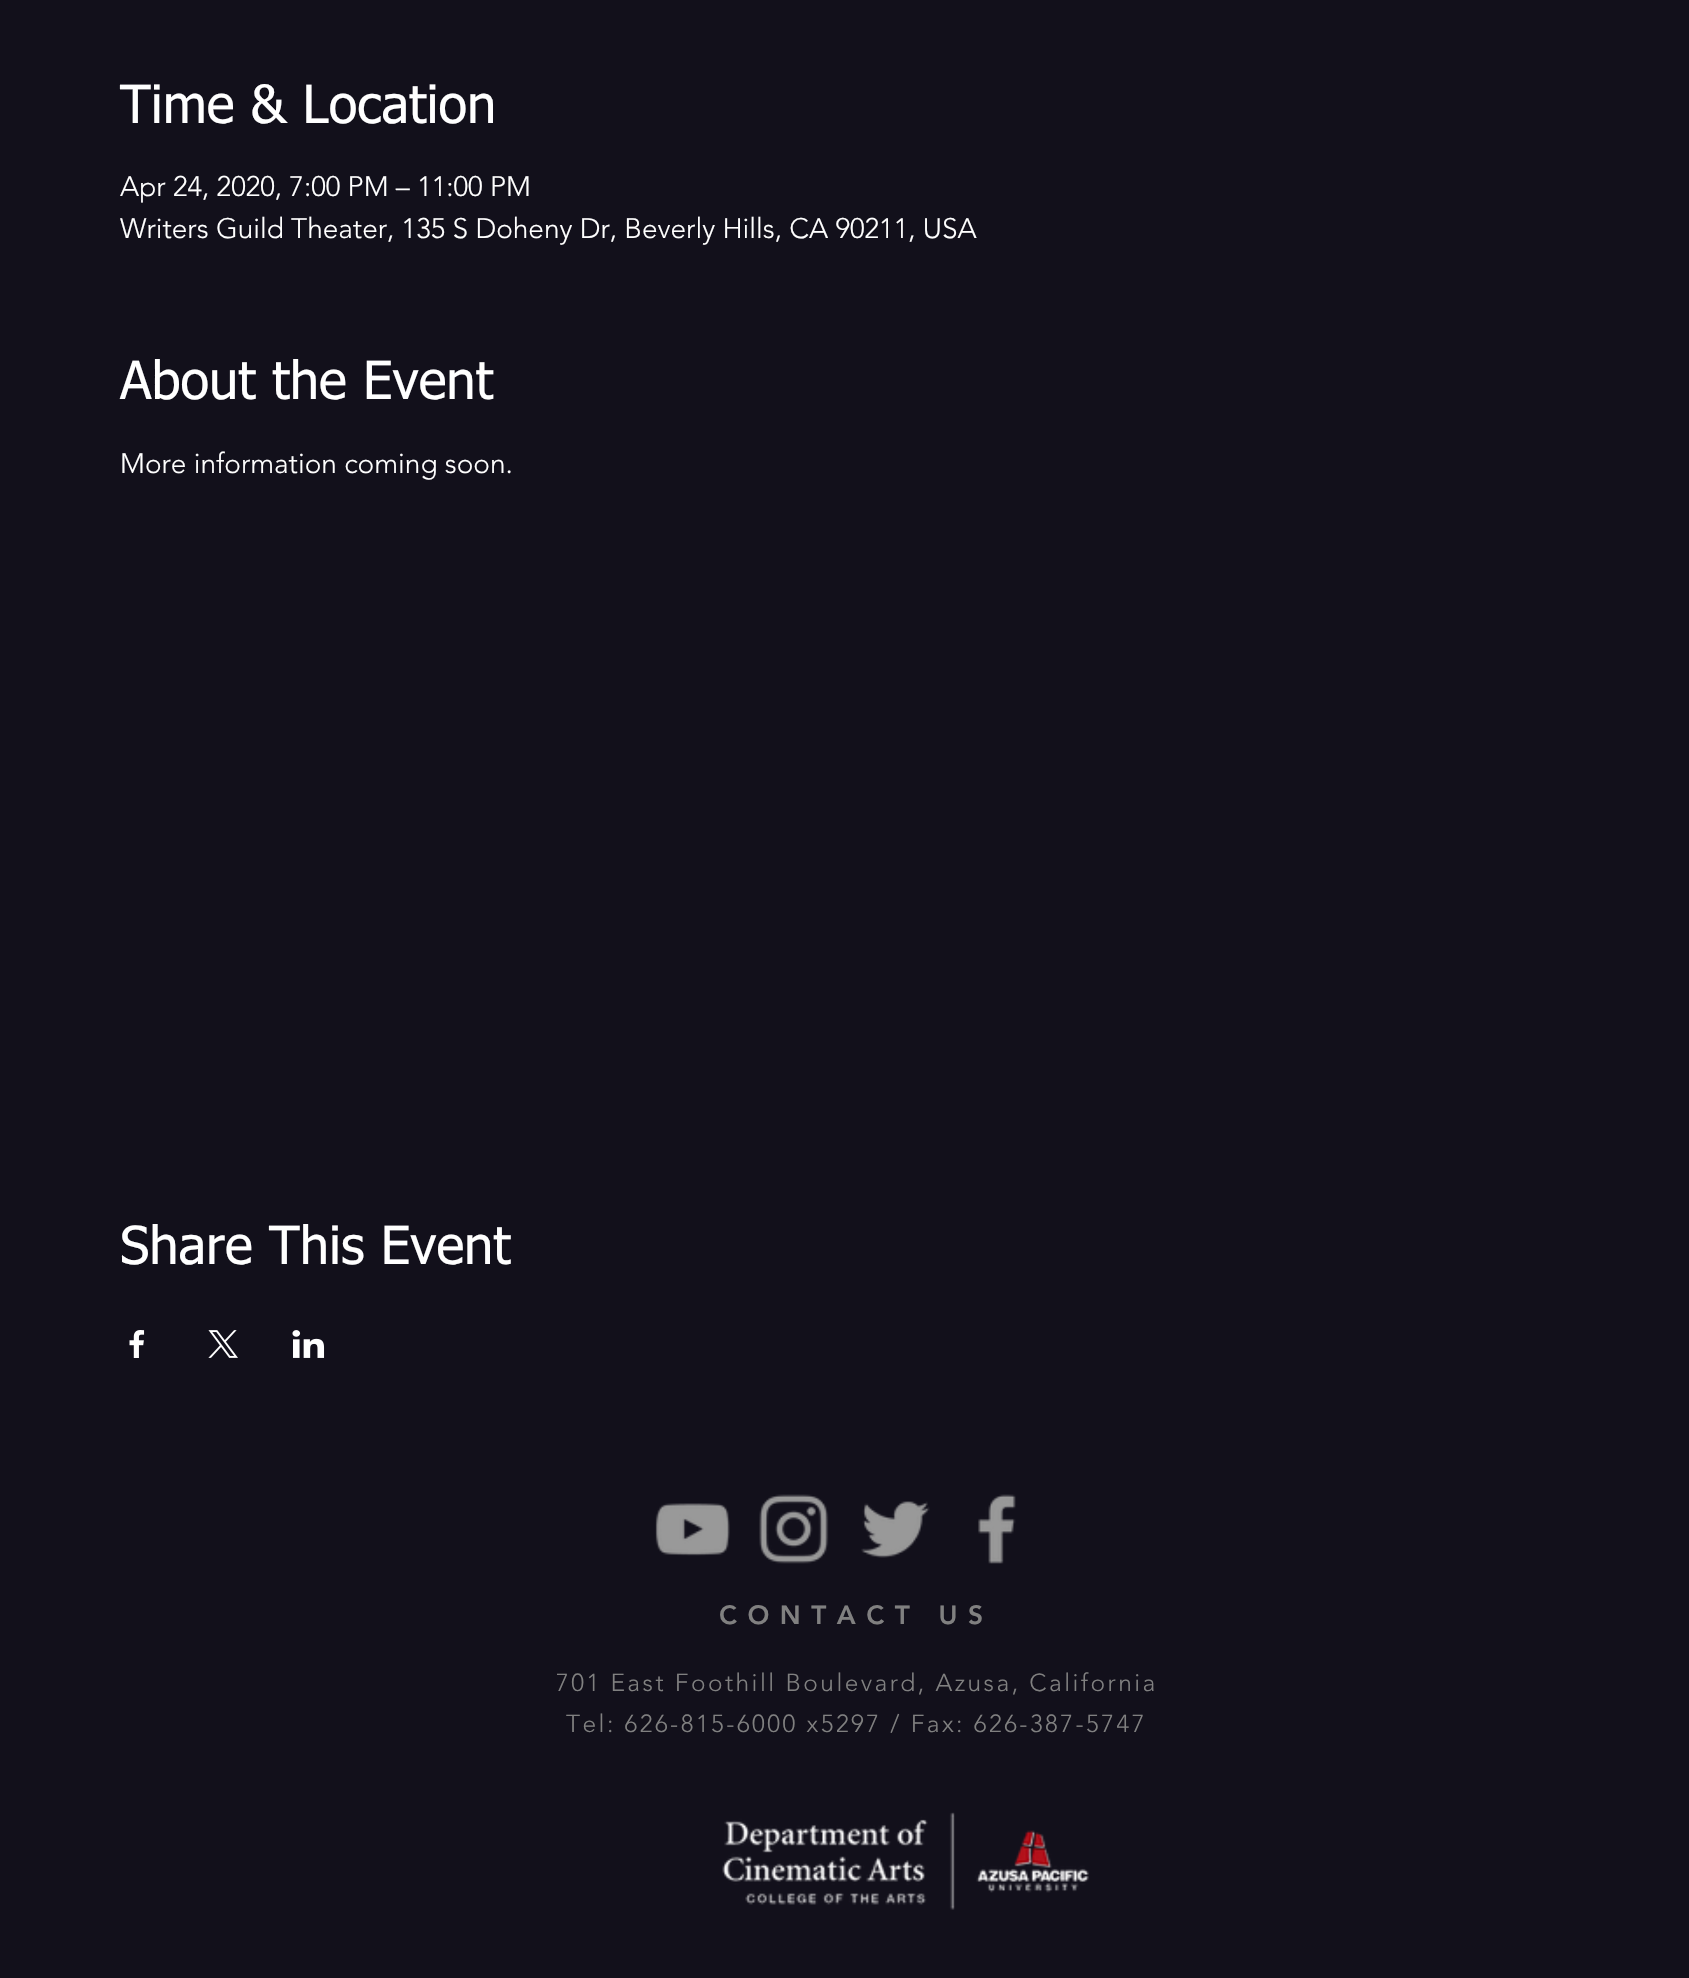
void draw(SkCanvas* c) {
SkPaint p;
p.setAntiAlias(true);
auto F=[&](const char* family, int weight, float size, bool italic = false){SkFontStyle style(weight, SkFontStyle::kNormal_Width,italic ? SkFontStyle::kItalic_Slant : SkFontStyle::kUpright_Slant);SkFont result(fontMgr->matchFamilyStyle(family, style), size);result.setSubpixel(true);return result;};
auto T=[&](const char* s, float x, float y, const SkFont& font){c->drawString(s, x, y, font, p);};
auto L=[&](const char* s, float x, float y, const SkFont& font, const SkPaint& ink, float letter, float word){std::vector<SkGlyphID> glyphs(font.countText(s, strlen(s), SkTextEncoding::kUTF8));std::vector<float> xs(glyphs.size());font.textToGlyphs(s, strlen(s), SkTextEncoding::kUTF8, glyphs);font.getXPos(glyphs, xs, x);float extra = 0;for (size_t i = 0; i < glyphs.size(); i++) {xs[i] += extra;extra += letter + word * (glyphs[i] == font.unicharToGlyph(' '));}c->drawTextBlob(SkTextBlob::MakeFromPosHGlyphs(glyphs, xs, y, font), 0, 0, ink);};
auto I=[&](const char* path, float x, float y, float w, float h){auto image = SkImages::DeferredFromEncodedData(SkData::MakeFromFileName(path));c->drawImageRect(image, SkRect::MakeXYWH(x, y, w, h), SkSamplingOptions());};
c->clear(0xff12101b);
auto f1 = F("tahoma",400,52.5);
p.setColor(0xffffffff);
T("Time & Location",120,123,f1);
auto f2 = F("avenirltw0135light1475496",300,28);
T("Apr 24, 2020, 7:00 PM – 11:00 PM",120,196,f2);
T("Writers Guild Theater, 135 S Doheny Dr, Beverly Hills, CA 90211, USA",120,238,f2);
T("About the Event",120,399,f1);
T("More information coming soon.",120,473,f2);
T("Share This Event",120,1264,f1);
I("1.png",129,1330,16,28);
I("2.png",208,1330,30,28);
I("3.png",292,1330,33,28);
I("4.png",655,1503,75,53);
I("5.png",759,1494,70,70);
I("6.png",861,1501,69,57);
I("7.png",978,1494,38,70);
auto f3 = F("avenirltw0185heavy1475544",900,26.25);
p.setColor(0xff808080);
L("CONTACT US",719,1624,f3,p,10.5,0);
auto f4 = F("avenirltw0135light1475496",300,24.5);
L("701 East Foothill Boulevard, Azusa, California",556,1691,f4,p,2.45,0);
L("Tel: 626-815-6000 x5297 / Fax: 626-387-5747",566,1732,f4,p,2.45,0);
I("8.png",722,1812,367,98);
}
